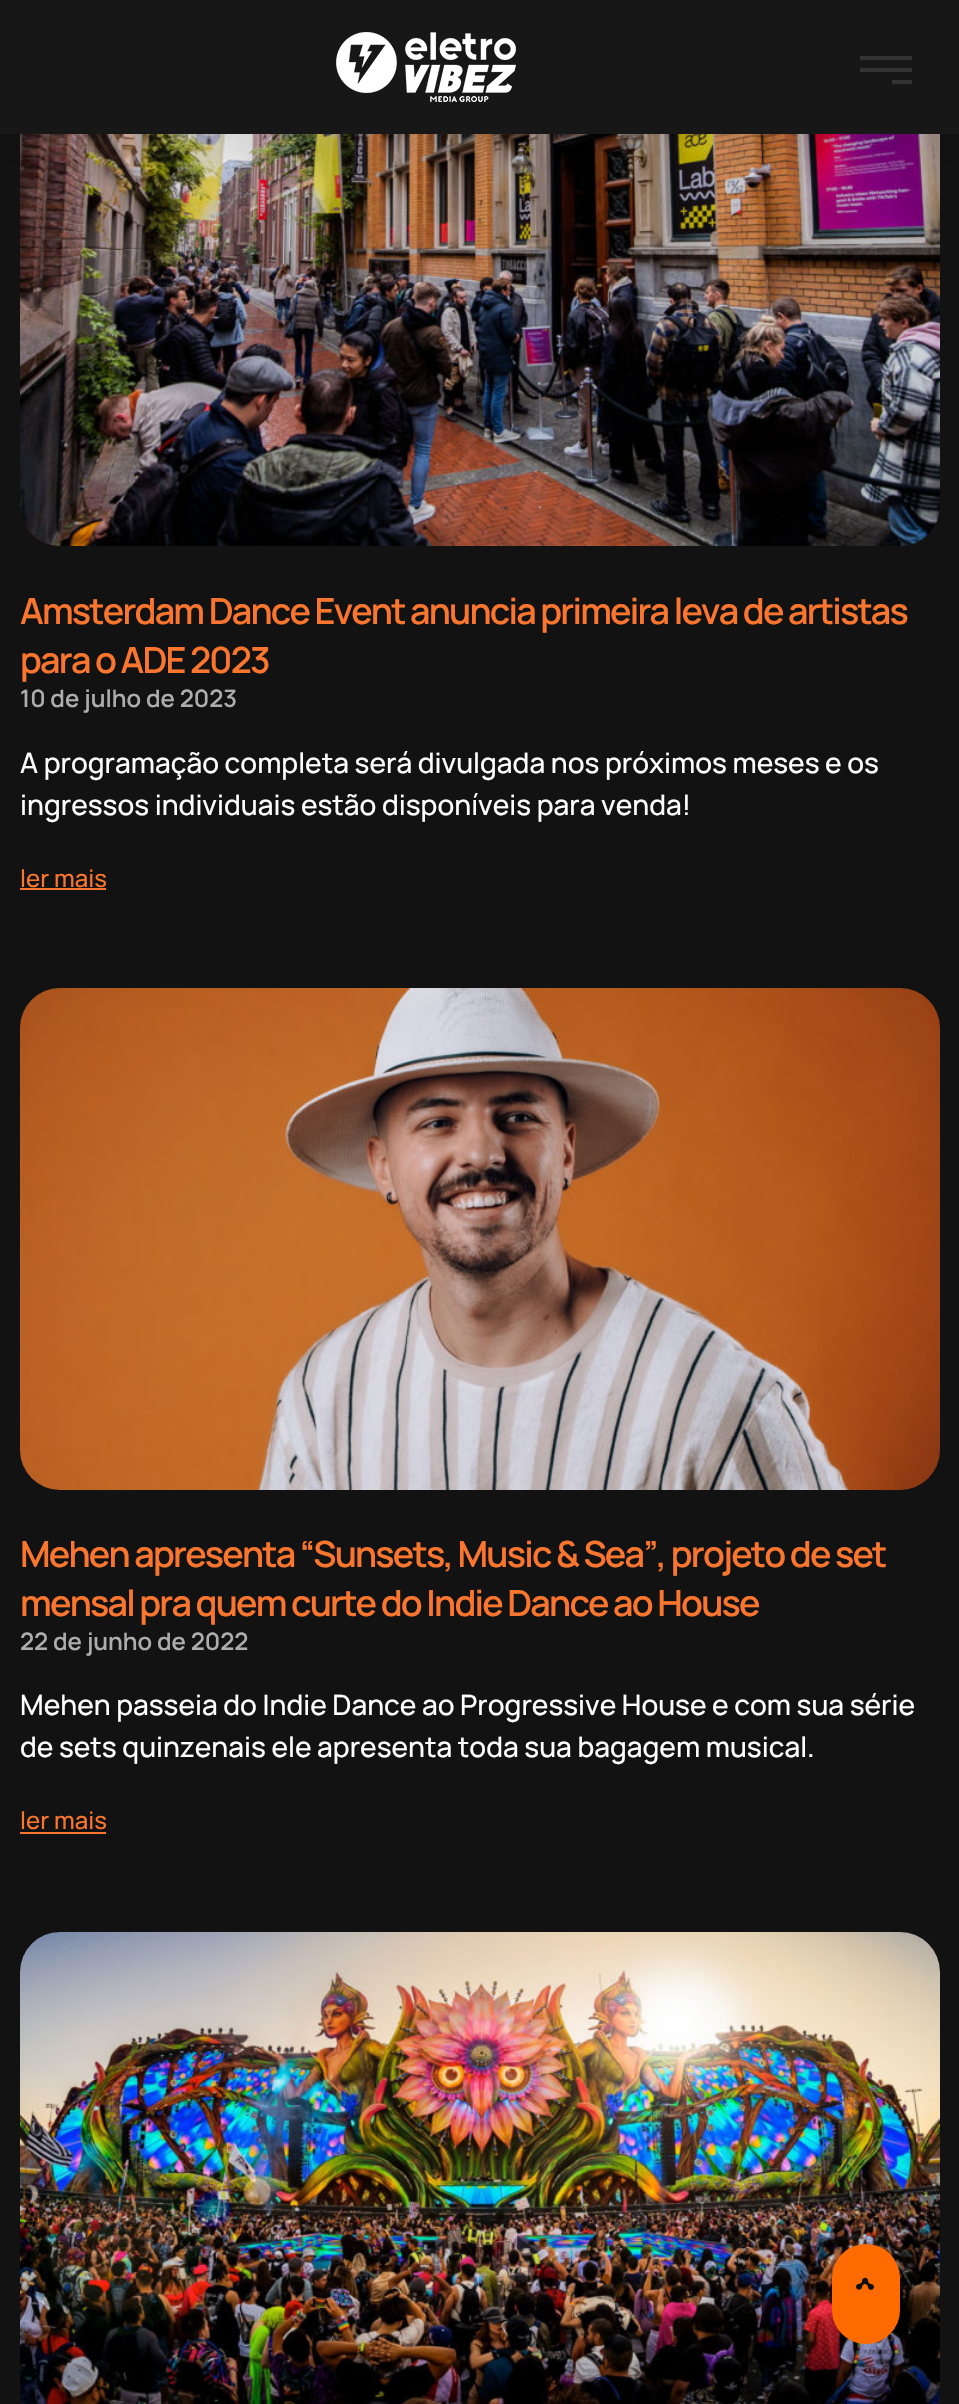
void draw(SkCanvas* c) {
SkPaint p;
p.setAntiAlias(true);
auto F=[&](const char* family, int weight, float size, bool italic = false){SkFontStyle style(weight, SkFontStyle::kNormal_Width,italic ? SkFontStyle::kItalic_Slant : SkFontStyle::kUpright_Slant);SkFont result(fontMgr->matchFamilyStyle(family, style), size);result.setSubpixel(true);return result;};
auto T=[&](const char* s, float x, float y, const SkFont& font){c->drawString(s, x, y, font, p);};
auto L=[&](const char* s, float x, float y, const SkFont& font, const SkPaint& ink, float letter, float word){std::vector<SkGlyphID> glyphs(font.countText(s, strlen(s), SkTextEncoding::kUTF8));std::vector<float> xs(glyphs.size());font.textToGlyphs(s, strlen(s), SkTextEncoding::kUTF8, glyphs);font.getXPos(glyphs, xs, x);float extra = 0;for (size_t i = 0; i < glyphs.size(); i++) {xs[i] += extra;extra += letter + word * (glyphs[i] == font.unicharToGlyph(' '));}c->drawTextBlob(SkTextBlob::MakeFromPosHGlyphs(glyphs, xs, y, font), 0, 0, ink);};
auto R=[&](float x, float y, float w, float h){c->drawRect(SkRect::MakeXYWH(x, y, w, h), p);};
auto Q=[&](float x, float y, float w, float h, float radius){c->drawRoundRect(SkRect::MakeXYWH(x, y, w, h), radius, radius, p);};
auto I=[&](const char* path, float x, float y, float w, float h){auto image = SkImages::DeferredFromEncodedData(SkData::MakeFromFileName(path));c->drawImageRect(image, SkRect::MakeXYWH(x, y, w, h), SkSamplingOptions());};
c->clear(0xff121212);
I("2.png",20,134,920,412);
p.setColor(0x1a000000);
p.setMaskFilter(SkMaskFilter::MakeBlur(kNormal_SkBlurStyle, 23));
c->drawRect(SkRect::MakeXYWH(-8,2,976,150),p);
p.setMaskFilter(nullptr);
p.setColor(0xff171717);
R(0,0,959,134);
I("1.png",336,32,180,70);
p.setColor(0xff333333);
R(860,56,52,4);
R(860,68,52,4);
R(892,80,20,4);
auto f1 = F("Manrope",600,36);
p.setColor(0xfffa752d);
L("Amsterdam Dance Event anuncia primeira leva de artistas",20,624,f1,p,-1.8,0);
L("para o ADE 2023",20,673,f1,p,-1.8,0);
auto f2 = F("Manrope",600,24);
p.setColor(0xffadadad);
T("10 de julho de 2023",20,707,f2);
auto f3 = F("Manrope",500,28);
p.setColor(0xffffffff);
T("A programação completa será divulgada nos próximos meses e os",20,773,f3);
T("ingressos individuais estão disponíveis para venda!",20,815,f3);
auto f4 = F("Manrope",500,24);
p.setColor(0xfffa752d);
T("ler mais",20,887,f4);
R(20,888,86,2);
I("3.png",20,988,920,502);
L("Mehen apresenta “Sunsets, Music & Sea”, projeto de set",20,1567,f1,p,-1.8,0);
L("mensal pra quem curte do Indie Dance ao House",20,1616,f1,p,-1.8,0);
p.setColor(0xffadadad);
T("22 de junho de 2022",20,1650,f2);
p.setColor(0xffffffff);
T("Mehen passeia do Indie Dance ao Progressive House e com sua série",20,1715,f3);
T("de sets quinzenais ele apresenta toda sua bagagem musical.",20,1757,f3);
p.setColor(0xfffa752d);
T("ler mais",20,1829,f4);
R(20,1832,86,2);
I("4.png",20,1932,920,472);
p.setColor(0xffff6b00);
Q(832,2244,68,100,34);
I("5.png",856,2277,18,13);
}
